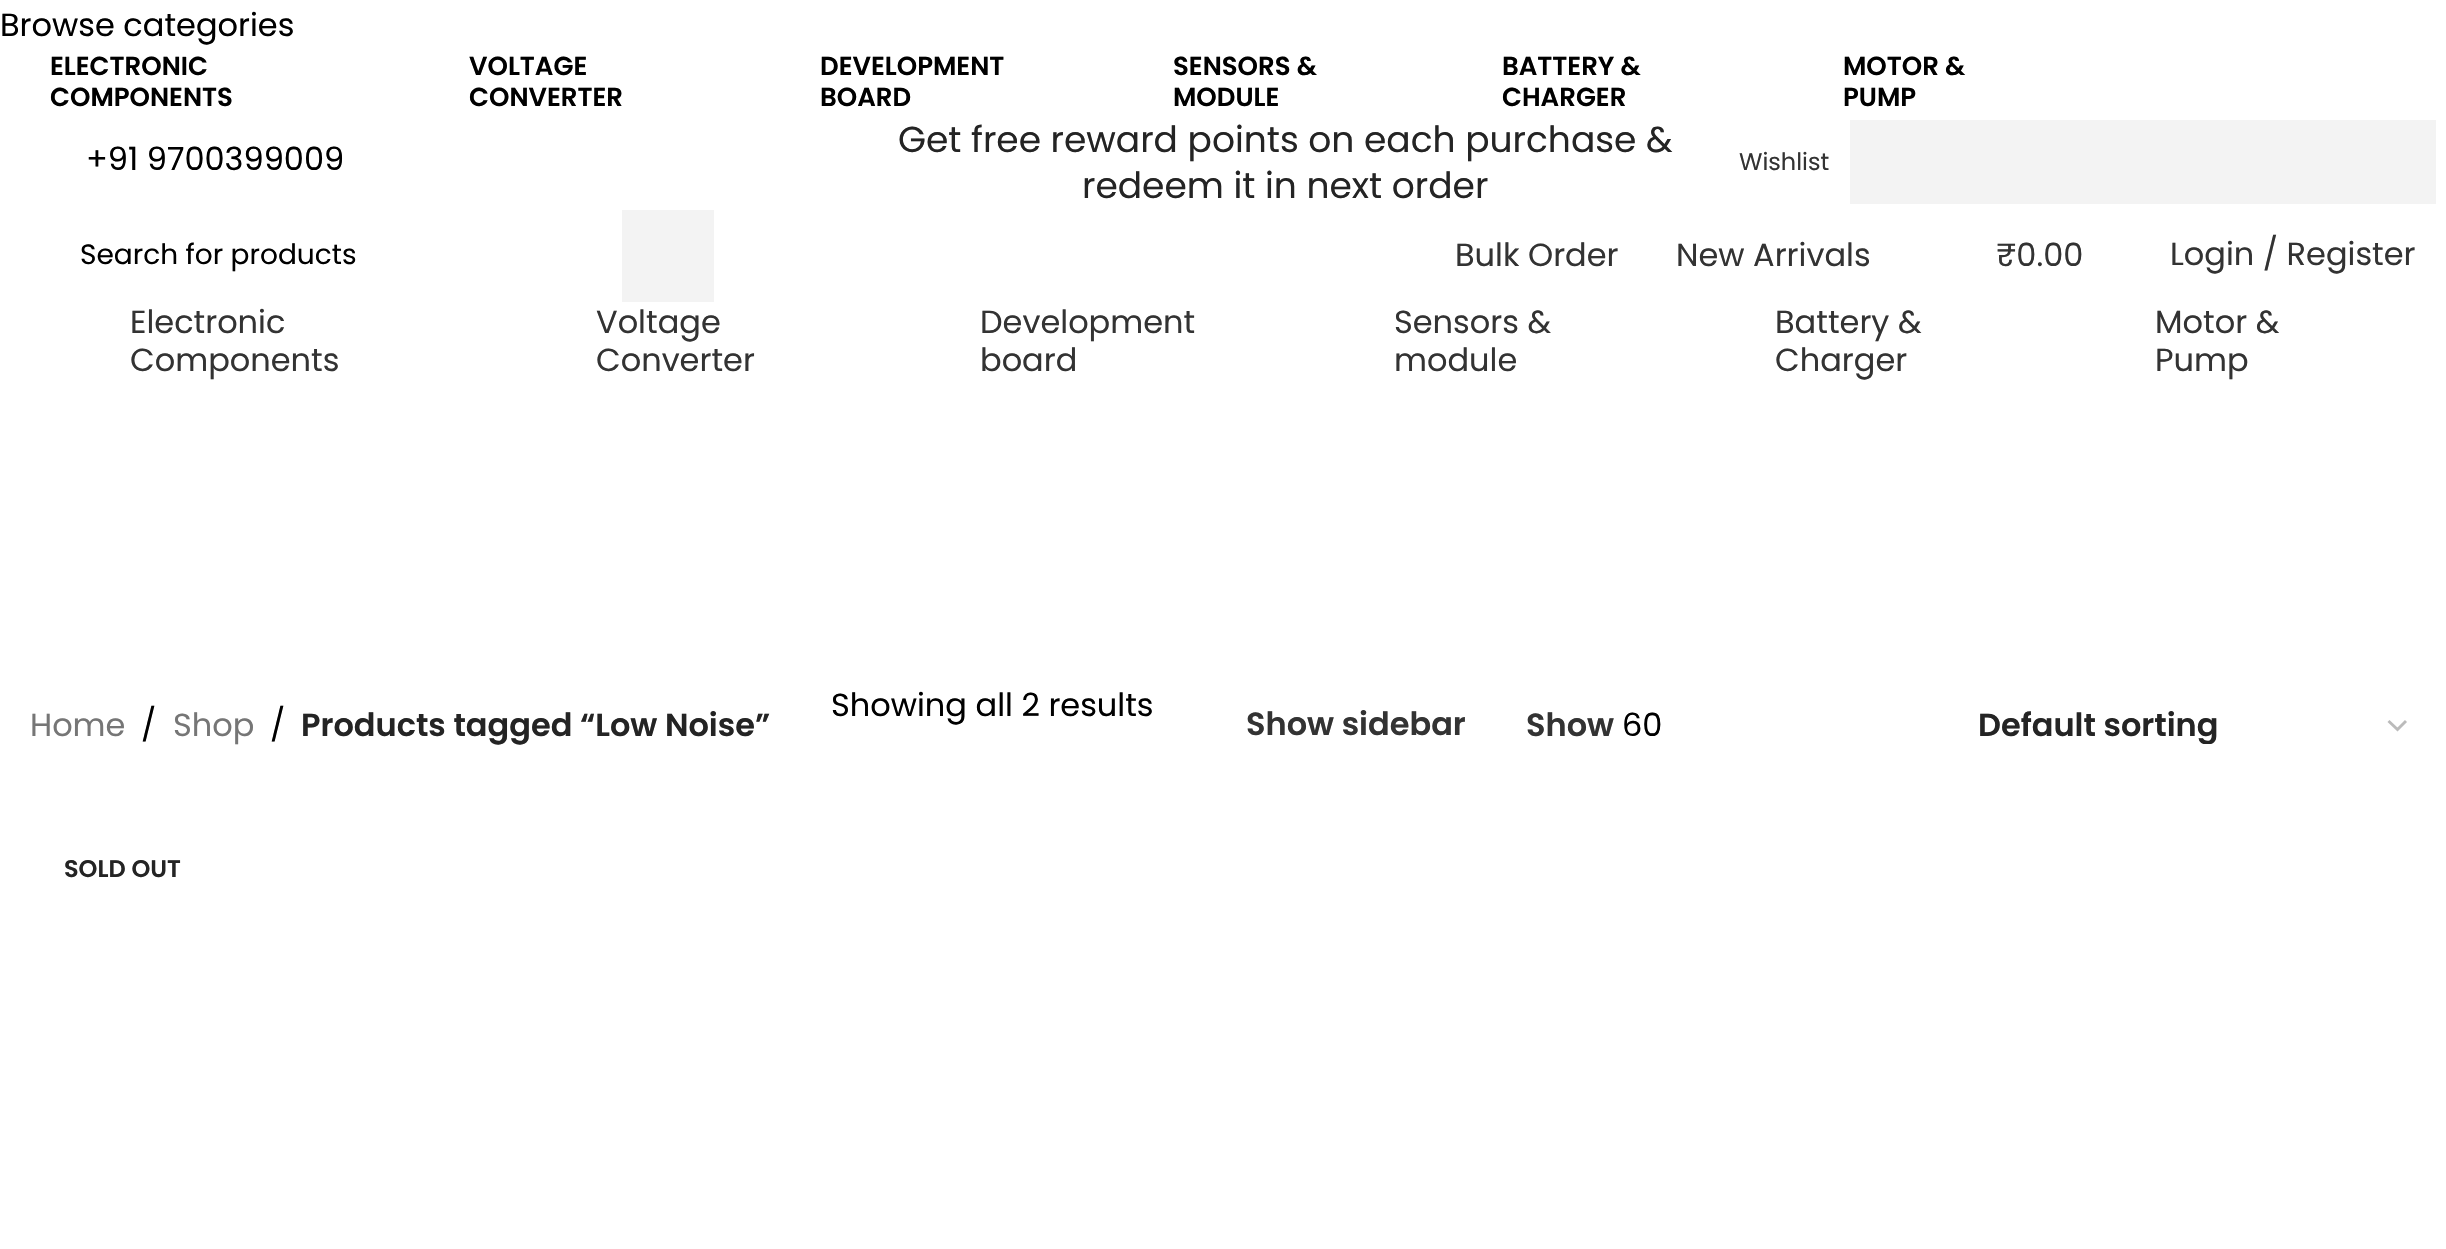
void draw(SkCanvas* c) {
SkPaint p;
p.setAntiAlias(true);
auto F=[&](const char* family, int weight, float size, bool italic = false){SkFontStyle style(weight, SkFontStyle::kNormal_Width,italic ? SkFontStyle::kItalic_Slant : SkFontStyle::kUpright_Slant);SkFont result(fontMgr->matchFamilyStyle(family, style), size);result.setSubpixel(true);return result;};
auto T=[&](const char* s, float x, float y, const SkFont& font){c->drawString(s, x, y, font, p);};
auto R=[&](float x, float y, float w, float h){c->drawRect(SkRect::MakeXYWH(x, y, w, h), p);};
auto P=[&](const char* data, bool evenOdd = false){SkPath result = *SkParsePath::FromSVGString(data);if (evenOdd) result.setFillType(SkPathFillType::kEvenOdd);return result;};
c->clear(0xffffffff);
auto f1 = F("Poppins",400,32);
p.setColor(0xff000000);
T("Browse categories",0,36,f1);
auto f2 = F("Poppins",600,26);
T("ELECTRONIC",50,75,f2);
T("COMPONENTS",50,106,f2);
T("VOLTAGE",469,75,f2);
T("CONVERTER",469,106,f2);
T("DEVELOPMENT",820,75,f2);
T("BOARD",820,106,f2);
T("SENSORS &",1173,75,f2);
T("MODULE",1173,106,f2);
T("BATTERY &",1502,75,f2);
T("CHARGER",1502,106,f2);
T("MOTOR &",1843,75,f2);
T("PUMP",1843,106,f2);
T("+91 9700399009",86,170,f1);
auto f3 = F("Poppins",400,36);
p.setColor(0xff242424);
T("Get free reward points on each purchase &",898,152,f3);
T("redeem it in next order",1082,198,f3);
auto f4 = F("Poppins",400,24);
p.setColor(0xff333333);
T("Wishlist",1739,170,f4);
p.setColor(0xfff3f3f3);
R(1850,120,586,84);
auto f5 = F("Poppins",400,28);
p.setColor(0xff000000);
T("Search for products",80,264,f5);
p.setColor(0xfff3f3f3);
R(622,210,92,92);
p.setColor(0xff333333);
T("Bulk Order",1455,266,f1);
T("New Arrivals",1676,266,f1);
T("₹0.00",1996,266,f1);
T("Login / Register",2170,265,f1);
T("Electronic",130,333,f1);
T("Components",130,371,f1);
T("Voltage",596,333,f1);
T("Converter",596,371,f1);
T("Development",980,333,f1);
T("board",980,371,f1);
T("Sensors &",1394,333,f1);
T("module",1394,371,f1);
T("Battery &",1775,333,f1);
T("Charger",1775,371,f1);
T("Motor &",2155,333,f1);
T("Pump",2155,371,f1);
p.setColor(0xff767676);
T("Home",30,736,f1);
p.setColor(0xff000000);
T("/",141,736,f1);
p.setColor(0xff767676);
T("Shop",173,736,f1);
p.setColor(0xff000000);
T("/",270,736,f1);
auto f6 = F("Poppins",600,32);
p.setColor(0xff242424);
T("Products tagged “Low Noise”",301,736,f6);
p.setColor(0xff000000);
T("Showing all 2 results",831,716,f1);
p.setColor(0xff333333);
T("Show sidebar",1246,735,f6);
T("Show",1526,736,f6);
p.setColor(0xff000000);
T("60",1622,736,f1);
p.setStroke(true);
p.setStrokeWidth(2.9);
p.setColor(0xffbbbbbb);
c->drawPath(P("M2388.5 721l9 8.5l8.5-8.5"),p);
c->save();
c->clipRect(SkRect::MakeXYWH(1978,706,398,38));
p.setStroke(false);
p.setColor(0xff242424);
T("Default sorting",1978,736,f6);
c->restore();
auto f7 = F("Poppins",600,24);
T("SOLD OUT",64,877,f7);
}
